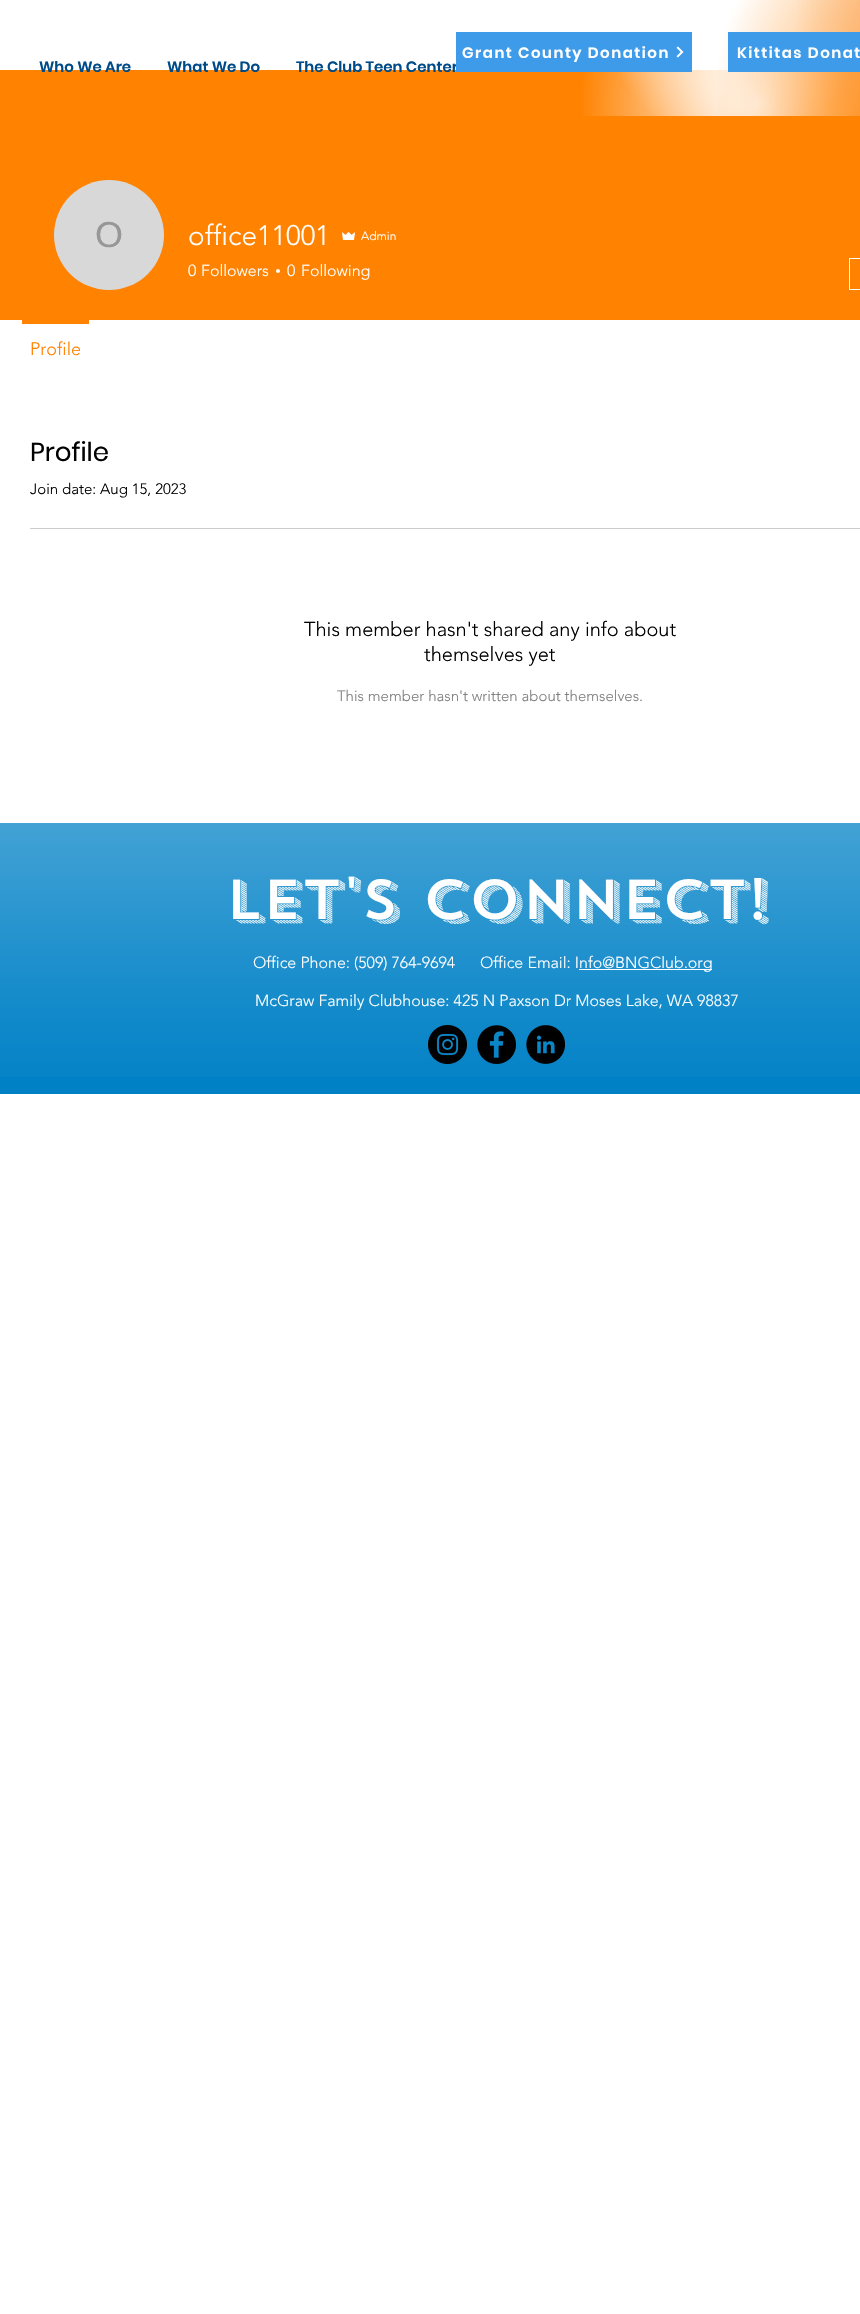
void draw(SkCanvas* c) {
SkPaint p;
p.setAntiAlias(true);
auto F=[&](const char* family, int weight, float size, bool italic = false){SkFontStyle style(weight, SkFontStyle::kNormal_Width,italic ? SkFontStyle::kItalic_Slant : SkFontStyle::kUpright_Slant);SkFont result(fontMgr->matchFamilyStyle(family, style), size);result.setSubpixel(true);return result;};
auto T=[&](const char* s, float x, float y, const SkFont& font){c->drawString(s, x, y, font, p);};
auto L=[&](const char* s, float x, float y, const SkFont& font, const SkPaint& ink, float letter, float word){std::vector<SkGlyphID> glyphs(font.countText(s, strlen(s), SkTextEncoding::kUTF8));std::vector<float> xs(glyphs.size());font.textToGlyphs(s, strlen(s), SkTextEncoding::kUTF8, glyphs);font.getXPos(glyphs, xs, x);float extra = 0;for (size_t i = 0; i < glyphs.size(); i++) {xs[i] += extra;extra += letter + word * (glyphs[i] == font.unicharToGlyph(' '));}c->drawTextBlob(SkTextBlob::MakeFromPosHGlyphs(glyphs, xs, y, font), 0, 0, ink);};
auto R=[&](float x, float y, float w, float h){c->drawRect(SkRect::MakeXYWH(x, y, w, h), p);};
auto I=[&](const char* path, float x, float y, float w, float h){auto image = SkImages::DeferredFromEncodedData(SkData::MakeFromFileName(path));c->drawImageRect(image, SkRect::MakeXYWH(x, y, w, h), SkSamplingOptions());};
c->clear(0xffffffff);
p.setColor(0xffff8200);
R(0,70,860,250);
{
const SkColor colors[] = {0xffffffff,0x00ffffff};
const float stops[] = {0,.7};
p.setShader(SkGradientShader::MakeRadial({757,104}, 255, colors, stops, 2, SkTileMode::kClamp));
p.setAlpha(255);
}
R(582,70,278,46);
{
const SkColor colors[] = {0xfcffffff,0x00ffffff};
const float stops[] = {0,.5};
p.setShader(SkGradientShader::MakeRadial({736,13}, 264, colors, stops, 2, SkTileMode::kClamp));
p.setAlpha(255);
}
R(619,70,233,46);
{
const SkColor colors[] = {0xffff8200,0x00ff8200};
const float stops[] = {0,.55};
p.setShader(SkGradientShader::MakeRadial({958,105}, 447, colors, stops, 2, SkTileMode::kClamp));
p.setAlpha(255);
}
R(717,0,143,116);
{
const SkColor colors[] = {0xfffaaa63,0x00faaa63};
const float stops[] = {0,.35};
p.setShader(SkGradientShader::MakeRadial({948,11}, 437, colors, stops, 2, SkTileMode::kClamp));
p.setAlpha(255);
}
R(798,0,62,116);
auto f1 = F("Poppins",600,15);
p.setShader(nullptr);
p.setColor(0xff004b87);
T("The Club Teen Center",296,72,f1);
p.setColor(0xff3d9be9);
R(456,32,236,40);
p.setColor(0xffffffff);
L("Grant County Donation",462,58,f1,p,1.5,0);
I("1.png",676,46,8,12);
p.setColor(0xff3d9be9);
R(728,32,132,40);
p.setColor(0xffffffff);
L("Kittitas Donat",737,58,f1,p,1.5,0);
p.setColor(0xff004b87);
T("Who We Are",39,72,f1);
T("What We Do",167,72,f1);
p.setColor(0xffd8d8d8);
c->drawCircle(109,235,55,p);
auto f2 = F("Liberation Sans",400,36);
p.setColor(0xff979797);
T("O",95,247,f2);
auto f3 = F("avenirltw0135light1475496",300,28);
p.setColor(0xffffffff);
T("office11001",188,245,f3);
I("2.png",342,232,13,8);
auto f4 = F("avenirltw0135light1475496",300,12);
T("Admin",361,240,f4);
auto f5 = F("avenirltw0135light1475496",300,16);
T("0",188,276,f5);
T("Followers",201,276,f5);
c->drawCircle(278,271,2,p);
T("0",287,276,f5);
T("Following",301,276,f5);
p.setStroke(true);
p.setStrokeWidth(1);
c->drawRect(SkRect::MakeXYWH(849.5,258.5,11,31),p);
p.setStroke(false);
p.setColor(0xffff8200);
R(22,320,67,4);
auto f6 = F("avenirltw0135light1475496",300,18);
T("Profile",30,355,f6);
auto f7 = F("Poppins",400,26);
p.setColor(0xff000000);
T("Profile",30,461,f7);
auto f8 = F("avenirltw0135light1475496",300,15);
T("Join date: Aug 15, 2023",30,494,f8);
p.setColor(0xffcccccc);
R(30,528,830,1);
auto f9 = F("avenirltw0135light1475496",300,20);
p.setColor(0xff000000);
T("This member hasn't shared any info about",304,636,f9);
T("themselves yet",424,661,f9);
p.setColor(0xff808080);
T("This member hasn't written about themselves.",337,701,f8);
p.setColor(0xff0081c6);
R(0,823,860,271);
I("3.png",0,823,860,254);
auto f10 = F("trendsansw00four",500,56);
p.setColor(0xffffffff);
T("Let's Connect!",225,919,f10);
T("Office Phone: (509) 764-9694",253,968,f5);
T("Office Email: I",480,968,f5);
R(579,969,133,1);
T("nfo@BNGClub.org",579,968,f5);
T("McGraw Family Clubhouse: 425 N Paxson Dr Moses Lake, WA 98837",255,1006,f5);
I("4.png",428,1025,39,39);
I("5.png",477,1025,39,39);
I("6.png",526,1025,39,39);
}
